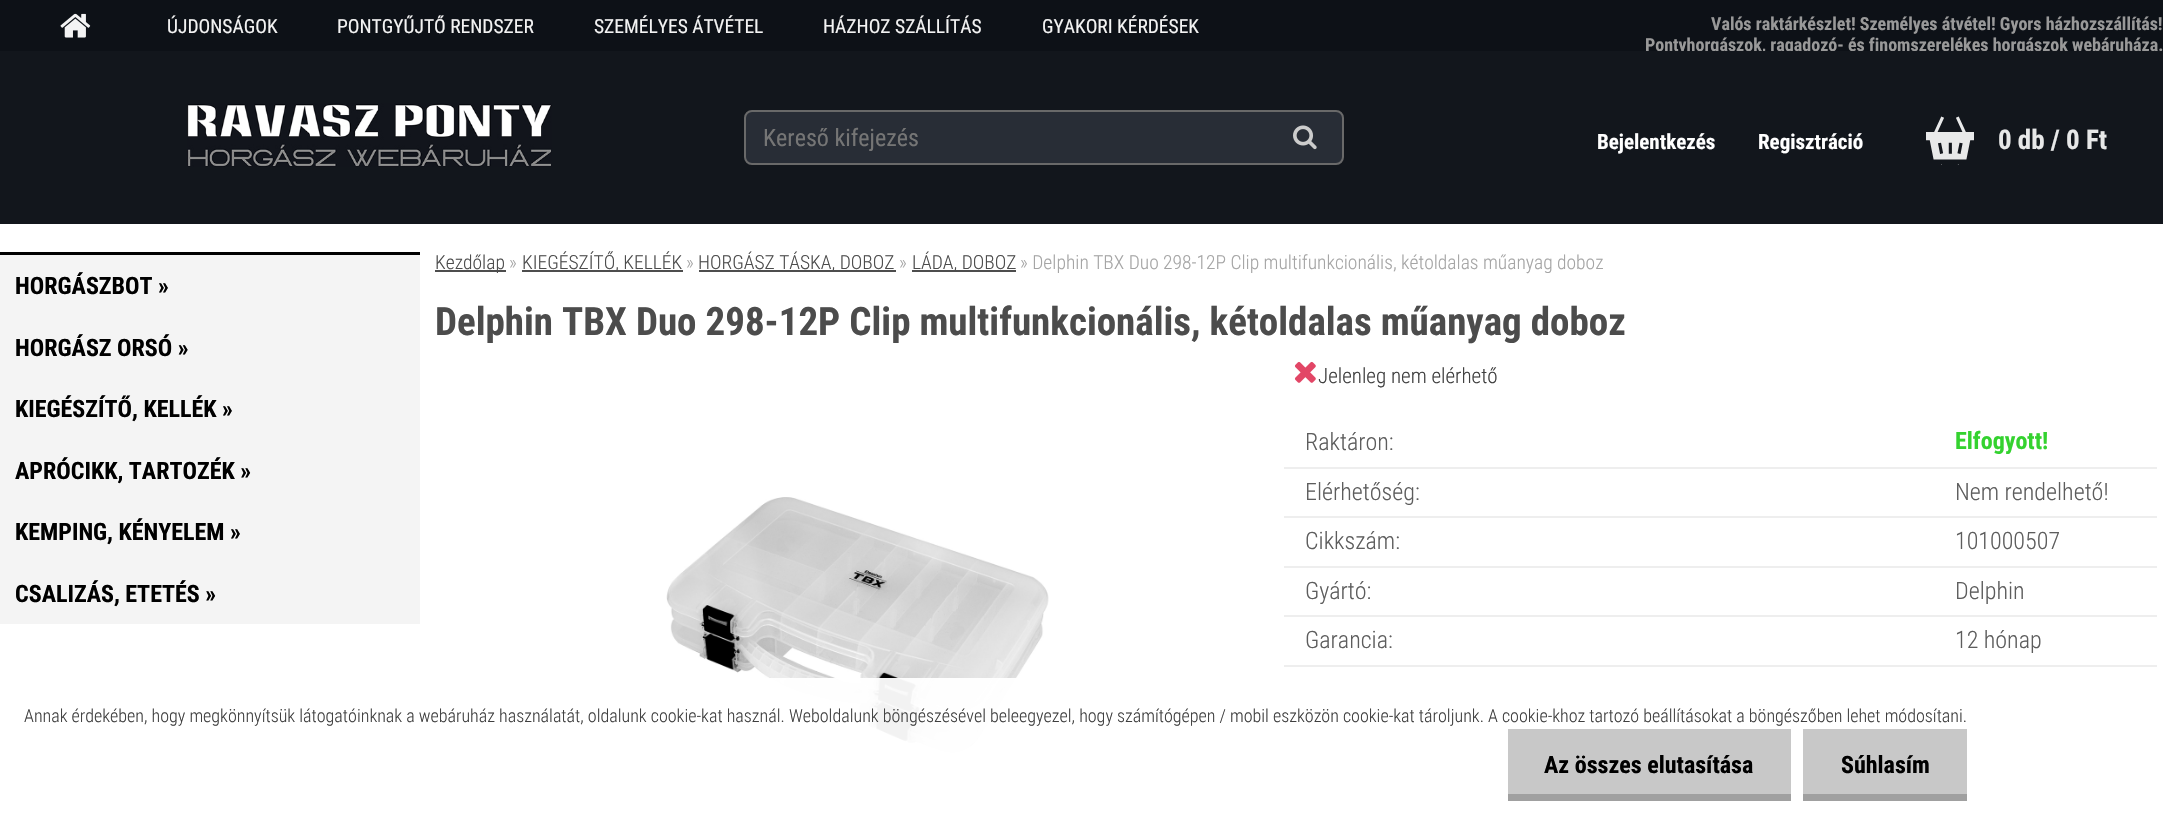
void draw(SkCanvas* c) {
SkPaint p;
p.setAntiAlias(true);
auto F=[&](const char* family, int weight, float size, bool italic = false){SkFontStyle style(weight, SkFontStyle::kNormal_Width,italic ? SkFontStyle::kItalic_Slant : SkFontStyle::kUpright_Slant);SkFont result(fontMgr->matchFamilyStyle(family, style), size);result.setSubpixel(true);return result;};
auto T=[&](const char* s, float x, float y, const SkFont& font){c->drawString(s, x, y, font, p);};
auto R=[&](float x, float y, float w, float h){c->drawRect(SkRect::MakeXYWH(x, y, w, h), p);};
auto I=[&](const char* path, float x, float y, float w, float h){auto image = SkImages::DeferredFromEncodedData(SkData::MakeFromFileName(path));c->drawImageRect(image, SkRect::MakeXYWH(x, y, w, h), SkSamplingOptions());};
c->clear(0xff0d1117);
I("1.png",60,13,31,25);
auto f1 = F("Roboto Condensed",400,19.5);
p.setColor(0xfff3f3f3);
T("ÚJDONSÁGOK",167,33,f1);
T("PONTGYŰJTŐ RENDSZER",337,33,f1);
T("SZEMÉLYES ÁTVÉTEL",594,33,f1);
T("HÁZHOZ SZÁLLÍTÁS",823,33,f1);
T("GYAKORI KÉRDÉSEK",1042,33,f1);
auto f2 = F("Roboto Condensed",700,18);
p.setColor(0xff999999);
T("Valós raktárkészlet! Személyes átvétel! Gyors házhozszállítás!",1711,30,f2);
T("Pontyhorgászok, ragadozó- és finomszerelékes horgászok webáruháza.",1645,51,f2);
p.setColor(0xff12161c);
R(0,51,2163,173);
I("2.png",187,103,365,64);
p.setColor(0xff282d36);
c->drawRoundRect(SkRect::MakeXYWH(745,111,598,53),7,7,p);
p.setStroke(true);
p.setStrokeWidth(2);
p.setColor(0xff696969);
c->drawRoundRect(SkRect::MakeXYWH(745,111,598,53),7,7,p);
auto f3 = F("Roboto Condensed",400,24);
p.setStroke(false);
p.setColor(0xff757575);
T("Kereső kifejezés",763,146,f3);
I("3.png",1293,125,24,25);
auto f4 = F("Roboto Condensed",700,21);
p.setColor(0xffffffff);
T("Bejelentkezés",1597,149,f4);
T("Regisztráció",1758,149,f4);
I("4.png",1926,116,48,49);
auto f5 = F("Roboto Condensed",700,27);
p.setColor(0xffe7e8e8);
T("0 db / 0 Ft",1998,149,f5);
p.setColor(0xffffffff);
R(0,224,2163,600);
p.setColor(0xff000000);
R(0,252,420,3);
p.setColor(0xfff4f4f4);
R(0,255,420,369);
auto f6 = F("Roboto Condensed",700,24);
p.setColor(0xff000000);
T("HORGÁSZBOT »",15,294,f6);
T("HORGÁSZ ORSÓ »",15,356,f6);
T("KIEGÉSZÍTŐ, KELLÉK »",15,417,f6);
T("APRÓCIKK, TARTOZÉK »",15,479,f6);
T("KEMPING, KÉNYELEM »",15,540,f6);
T("CSALIZÁS, ETETÉS »",15,602,f6);
p.setColor(0xff4d4d4d);
R(435,270,71,2);
auto f7 = F("Roboto Condensed",300,19.5);
p.setColor(0xff4c4c4c);
T("Kezdőlap",435,269,f7);
p.setColor(0xffa5a5a5);
T("»",509,269,f7);
p.setColor(0xff4d4d4d);
R(522,270,161,2);
p.setColor(0xff4c4c4c);
T("KIEGÉSZÍTŐ, KELLÉK",522,269,f7);
p.setColor(0xffa5a5a5);
T("»",686,269,f7);
p.setColor(0xff4d4d4d);
R(699,270,197,2);
p.setColor(0xff4c4c4c);
T("HORGÁSZ TÁSKA, DOBOZ",698,269,f7);
p.setColor(0xffa5a5a5);
T("»",899,269,f7);
p.setColor(0xff4d4d4d);
R(912,270,104,2);
p.setColor(0xff4c4c4c);
T("LÁDA, DOBOZ",912,269,f7);
p.setColor(0xffa5a5a5);
T("» Delphin TBX Duo 298-12P Clip multifunkcionális, kétoldalas műanyag doboz",1020,269,f7);
auto f8 = F("Roboto Condensed",700,39);
p.setColor(0xff4c4c4c);
T("Delphin TBX Duo 298-12P Clip multifunkcionális, kétoldalas műanyag doboz",435,335,f8);
I("5.png",666,497,383,256);
I("6.png",1294,361,22,22);
auto f9 = F("Roboto Condensed",300,21);
p.setColor(0xff3f3f3f);
T("Jelenleg nem elérhető",1318,383,f9);
p.setColor(0xffeeeeee);
R(1284,467,873,2);
auto f10 = F("Roboto Condensed",300,24);
p.setColor(0xff5d5d5d);
T("Raktáron:",1305,450,f10);
p.setColor(0xff34d22f);
T("Elfogyott!",1955,449,f6);
p.setColor(0xffeeeeee);
R(1284,516,873,2);
p.setColor(0xff5d5d5d);
T("Elérhetőség:",1305,500,f10);
T("Nem rendelhető!",1955,500,f10);
p.setColor(0xffeeeeee);
R(1284,566,873,2);
p.setColor(0xff5d5d5d);
T("Cikkszám:",1305,549,f10);
T("101000507",1955,549,f10);
p.setColor(0xffeeeeee);
R(1284,615,873,2);
p.setColor(0xff5d5d5d);
T("Gyártó:",1305,599,f10);
T("Delphin",1955,599,f10);
p.setColor(0xffeeeeee);
R(1284,665,873,2);
p.setColor(0xff5d5d5d);
T("Garancia:",1305,648,f10);
T("12 hónap",1955,648,f10);
p.setColor(0xffeeeeee);
R(1284,714,873,2);
R(1284,764,873,2);
R(1284,819,873,2);
p.setColor(0xf2ffffff);
R(770,678,1387,143);
auto f11 = F("Roboto Condensed",300,18);
p.setColor(0xff3f3f3f);
T("Annak érdekében, hogy megkönnyítsük látogatóinknak a webáruház használatát, oldalunk cookie-kat használ. Weboldalunk böngészésével beleegyezel, hogy számítógépen / mobil eszközön cookie-kat tároljunk. A cookie-khoz tartozó beállításokat a böngészőben lehet módosítani.",24,722,f11);
p.setColor(0xffc8c8c8);
R(1508,729,283,65);
p.setColor(0xffa0a0a0);
R(1508,794,283,7);
p.setColor(0xff000000);
T("Az összes elutasítása",1544,773,f6);
p.setColor(0xffc8c8c8);
R(1803,729,164,65);
p.setColor(0xffa0a0a0);
R(1803,794,164,7);
p.setColor(0xff000000);
T("Súhlasím",1841,773,f6);
}
